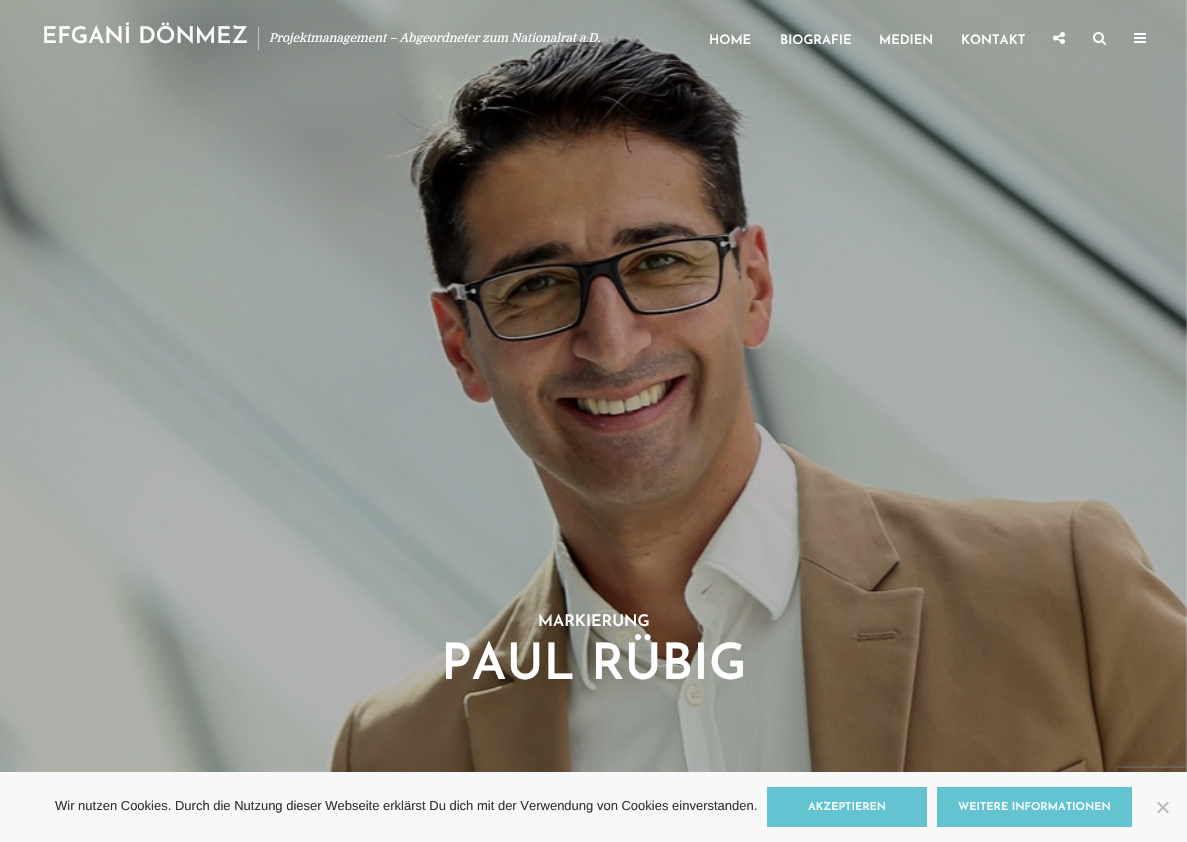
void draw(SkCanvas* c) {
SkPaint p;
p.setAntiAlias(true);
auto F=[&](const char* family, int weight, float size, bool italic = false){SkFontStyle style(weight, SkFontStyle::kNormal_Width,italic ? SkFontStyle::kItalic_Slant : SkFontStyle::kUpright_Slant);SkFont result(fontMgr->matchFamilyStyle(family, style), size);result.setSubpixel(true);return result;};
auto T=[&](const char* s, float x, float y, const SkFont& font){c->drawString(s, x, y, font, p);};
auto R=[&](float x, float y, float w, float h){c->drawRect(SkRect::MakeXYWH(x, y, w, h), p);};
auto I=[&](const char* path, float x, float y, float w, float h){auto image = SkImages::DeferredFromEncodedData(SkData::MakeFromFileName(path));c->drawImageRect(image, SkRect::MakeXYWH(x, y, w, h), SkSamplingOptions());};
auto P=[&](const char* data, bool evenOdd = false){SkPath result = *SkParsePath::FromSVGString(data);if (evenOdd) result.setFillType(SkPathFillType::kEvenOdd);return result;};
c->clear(0xffffffff);
I("4.png",0,0,1187,772);
auto f1 = F("Josefin Sans",600,23);
p.setColor(0xffffffff);
T("EFGANİ DÖNMEZ",42,43,f1);
p.setColor(0x80ffffff);
R(258,27,1,23);
auto f2 = F("Domine",400,12,true);
p.setColor(0xffffffff);
T("Projektmanagement – Abgeordneter zum Nationalrat a.D.",269,42,f2);
auto f3 = F("Josefin Sans",600,13);
T("HOME",709,44,f3);
T("BIOGRAFIE",780,44,f3);
T("MEDIEN",879,44,f3);
T("KONTAKT",961,44,f3);
I("1.png",1053,32,12,12);
I("2.png",1093,32,13,13);
I("3.png",1134,33,12,10);
auto f4 = F("Josefin Sans",600,16);
T("MARKIERUNG",538,626,f4);
auto f5 = F("Josefin Sans",600,50);
T("PAUL RÜBIG",441,679,f5);
c->save();
c->clipPath(P("M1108 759h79v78h-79zm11 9h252c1 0 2 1 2 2v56c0 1-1 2-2 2h-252c-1 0-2-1-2-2v-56c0-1 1-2 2-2z",true),true);
p.setColor(0xff808080);
p.setMaskFilter(SkMaskFilter::MakeBlur(kNormal_SkBlurStyle, 2.5));
c->drawRoundRect(SkRect::MakeXYWH(1117,768,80,60),2,2,p);
p.setMaskFilter(nullptr);
c->restore();
p.setColor(0xfff8f8f8);
R(0,772,1187,70);
auto f6 = F("Liberation Sans",400,13);
p.setColor(0xff333333);
T("Wir nutzen Cookies. Durch die Nutzung dieser Webseite erklärst Du dich mit der Verwendung von Cookies einverstanden.",55,810,f6);
p.setColor(0xff63c3d1);
R(767,787,160,40);
auto f7 = F("Josefin Sans",600,11);
p.setColor(0xffffffff);
T("AKZEPTIEREN",808,810,f7);
p.setColor(0xff63c3d1);
R(937,787,195,40);
p.setColor(0xffffffff);
T("WEITERE INFORMATIONEN",958,810,f7);
p.setColor(0xffbcbcbc);
c->drawPath(P("M1167.5 801.5l1.5 1.5l-10.5 10.5l-1.5-1.5z"),p);
c->drawPath(P("M1157 803l1.5-1.5l10.5 10.5l-1.5 1.5z"),p);
}
